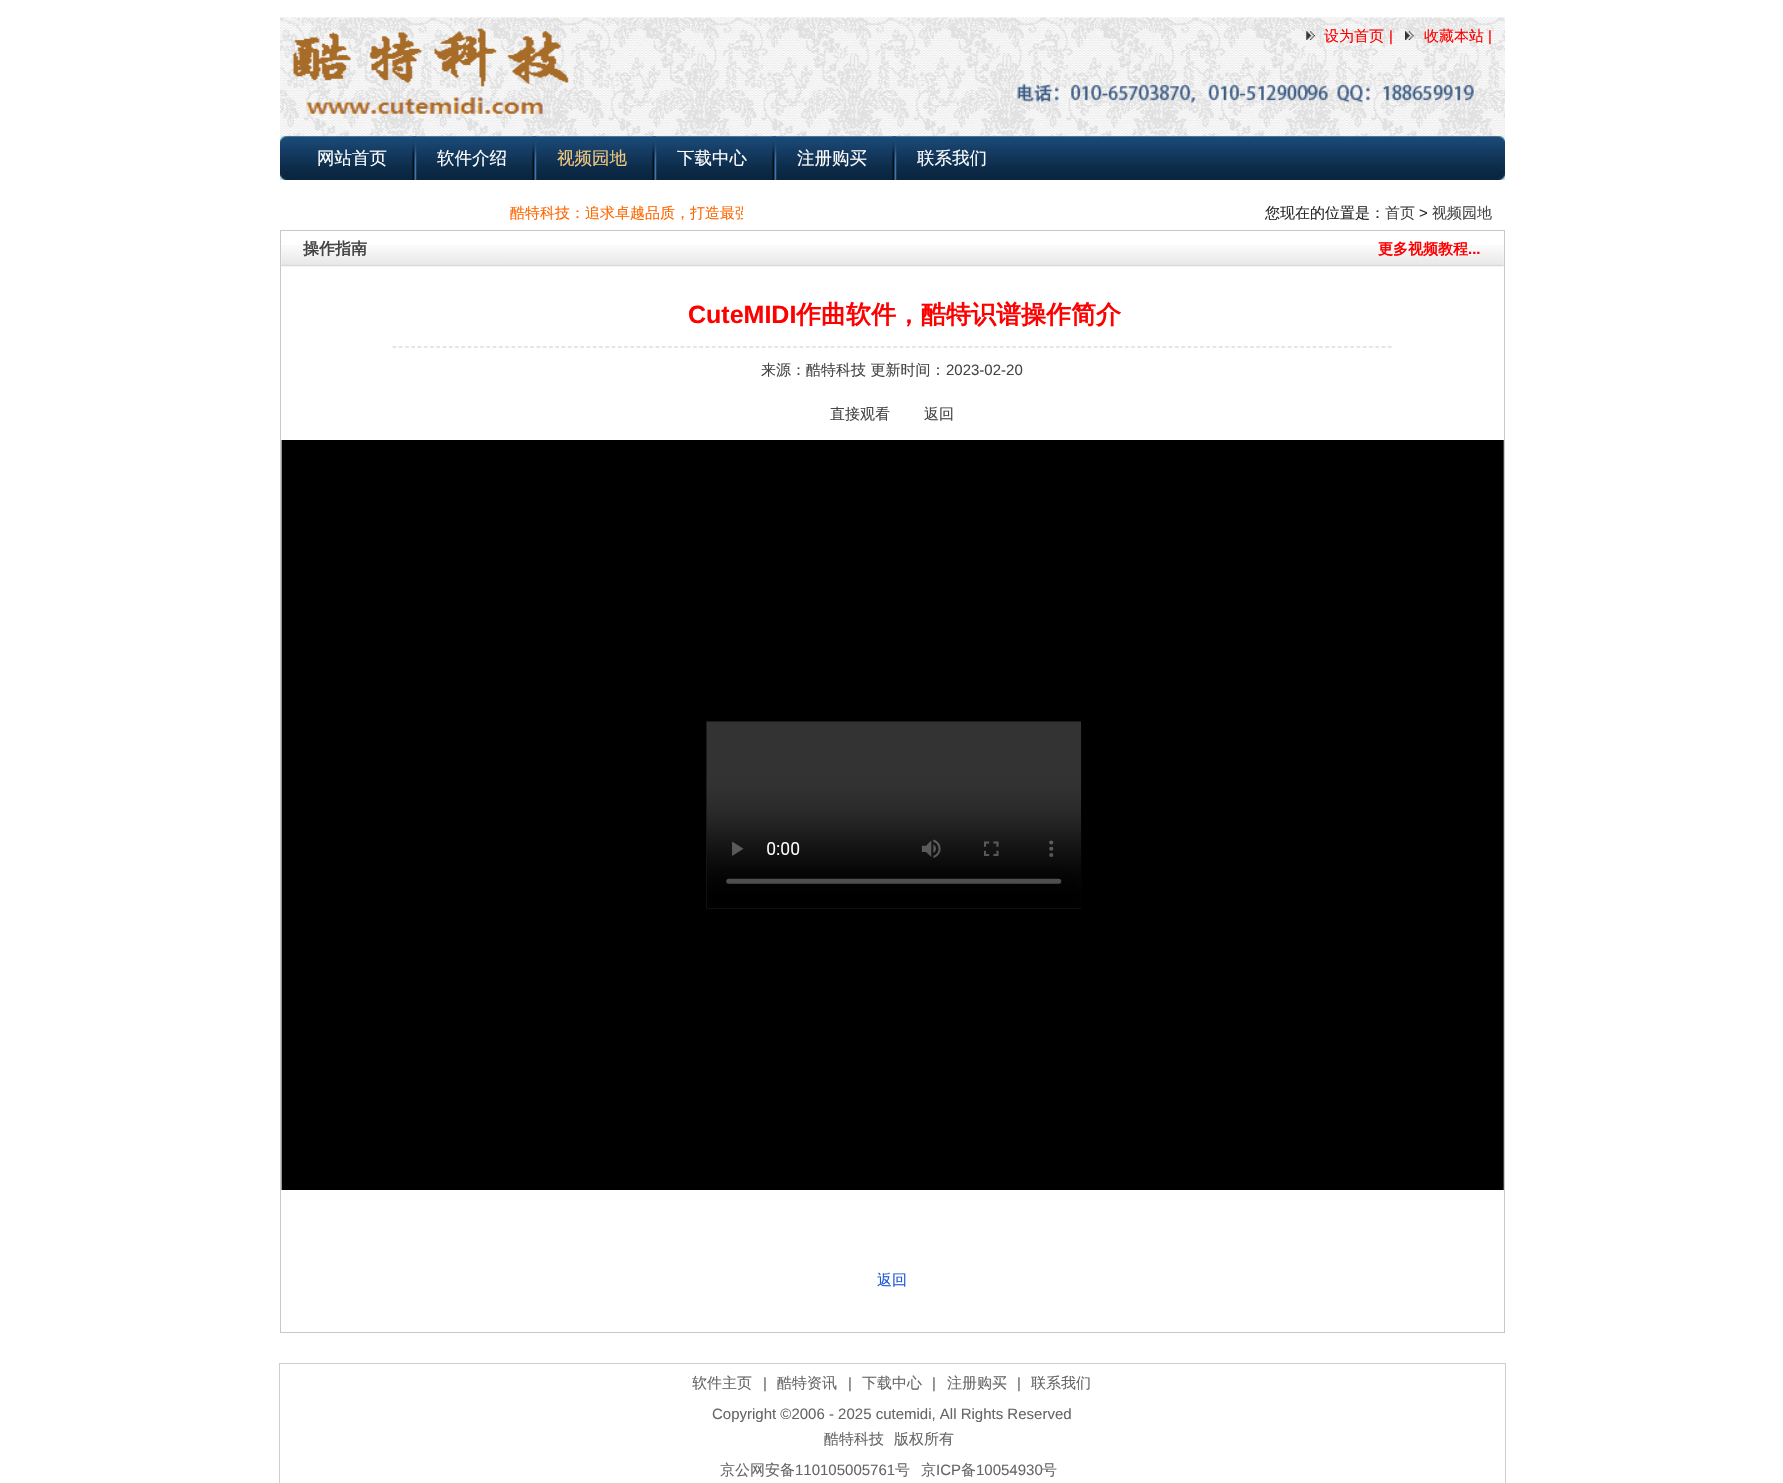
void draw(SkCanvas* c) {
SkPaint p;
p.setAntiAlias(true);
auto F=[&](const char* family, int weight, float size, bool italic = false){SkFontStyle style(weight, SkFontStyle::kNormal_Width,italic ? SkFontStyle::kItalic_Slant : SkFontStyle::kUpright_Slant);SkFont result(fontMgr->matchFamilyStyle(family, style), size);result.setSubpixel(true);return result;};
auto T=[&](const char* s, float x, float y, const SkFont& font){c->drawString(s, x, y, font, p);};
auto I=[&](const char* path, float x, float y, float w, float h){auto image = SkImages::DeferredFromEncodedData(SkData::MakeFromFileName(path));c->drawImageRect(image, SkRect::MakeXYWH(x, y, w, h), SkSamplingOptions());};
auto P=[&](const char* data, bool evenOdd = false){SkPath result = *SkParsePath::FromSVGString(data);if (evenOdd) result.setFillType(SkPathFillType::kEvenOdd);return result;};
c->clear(0xffffffff);
I("1.png",280,17,1225,120);
I("2.png",293,28,276,86);
I("3.png",1306,31,9,9);
auto f1 = F("WenQuanYi Zen Hei",500,15);
p.setColor(0xffff0000);
T("设为首页",1324,41,f1);
auto f2 = F("Liberation Sans",400,15);
T("|",1389,41,f2);
I("4.png",1405,31,9,9);
T("收藏本站",1424,41,f1);
T("|",1488,41,f2);
I("5.png",1017,83,457,20);
I("6.png",280,136,1225,44);
auto f3 = F("WenQuanYi Zen Hei",500,17.5);
p.setColor(0xffffffff);
T("网站首页",317,164,f3);
I("7.png",412,136,5,44);
T("软件介绍",437,164,f3);
I("8.png",532,136,5,44);
p.setColor(0xfff5c87f);
T("视频园地",557,164,f3);
I("9.png",652,136,5,44);
p.setColor(0xffffffff);
T("下载中心",677,164,f3);
I("10.png",772,136,5,44);
T("注册购买",797,164,f3);
I("11.png",892,136,5,44);
T("联系我们",917,164,f3);
c->save();
c->clipRect(SkRect::MakeXYWH(293,195,450,35));
p.setColor(0xffff6600);
T("酷特科技：追求卓越品质，打造最强",510,218,f1);
c->restore();
p.setColor(0xff282828);
T("您现在的位置是：",1265,218,f1);
p.setColor(0xff454545);
T("首页",1385,218,f1);
p.setColor(0xff282828);
T(">",1419,218,f2);
p.setColor(0xff454545);
T("视频园地",1432,218,f1);
p.setStroke(true);
p.setStrokeWidth(1);
p.setColor(0xffc8c8c8);
c->drawRect(SkRect::MakeXYWH(280.5,230.5,1224,1102),p);
I("12.png",281,245,1223,22);
auto f4 = F("WenQuanYi Zen Hei",700,16);
p.setStroke(false);
p.setColor(0xff454545);
T("操作指南",303,254,f4);
auto f5 = F("WenQuanYi Zen Hei",700,15);
p.setColor(0xffff0000);
T("更多视频教程",1378,254,f5);
auto f6 = F("Liberation Sans",700,15);
T("...",1468,254,f6);
p.setStroke(true);
p.setStrokeWidth(1.2);
p.setColor(0xffcccccc);
p.setPathEffect(SkDashPathEffect::Make({{3.75f,2.51f}}, 0));
c->drawPath(P("M392.5 347h1000"),p);
p.setPathEffect(nullptr);
auto f7 = F("Liberation Sans",700,25);
p.setStroke(false);
p.setColor(0xffff0000);
T("CuteMIDI",688,323,f7);
auto f8 = F("WenQuanYi Zen Hei",700,25);
T("作曲软件，酷特识谱操作简介",796,323,f8);
p.setColor(0xff454545);
T("来源：酷特科技 更新时间：",761,375,f1);
T("2023-02-20",946,375,f2);
T("直接观看",830,419,f1);
T("返回",924,419,f1);
I("13.png",281,440,1223,750);
p.setColor(0xff1d57d8);
T("返回",877,1285,f1);
p.setStroke(true);
p.setStrokeWidth(1);
p.setColor(0xffcecece);
c->drawRect(SkRect::MakeXYWH(279.5,1363.5,1226,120),p);
p.setStroke(false);
p.setColor(0xff666666);
T("软件主页",692,1388,f1);
T("|",763,1388,f2);
T("酷特资讯",777,1388,f1);
T("|",848,1388,f2);
T("下载中心",862,1388,f1);
T("|",932,1388,f2);
T("注册购买",947,1388,f1);
T("|",1017,1388,f2);
T("联系我们",1031,1388,f1);
T("Copyright ©2006 - 2025 cutemidi, All Rights Reserved",712,1419,f2);
T("酷特科技",824,1444,f1);
T("版权所有",894,1444,f1);
T("京公网安备",720,1475,f1);
T("110105005761",795,1475,f2);
T("号",895,1475,f1);
T("京",921,1475,f1);
T("ICP",936,1475,f2);
T("备",961,1475,f1);
T("10054930",976,1475,f2);
T("号",1042,1475,f1);
}
